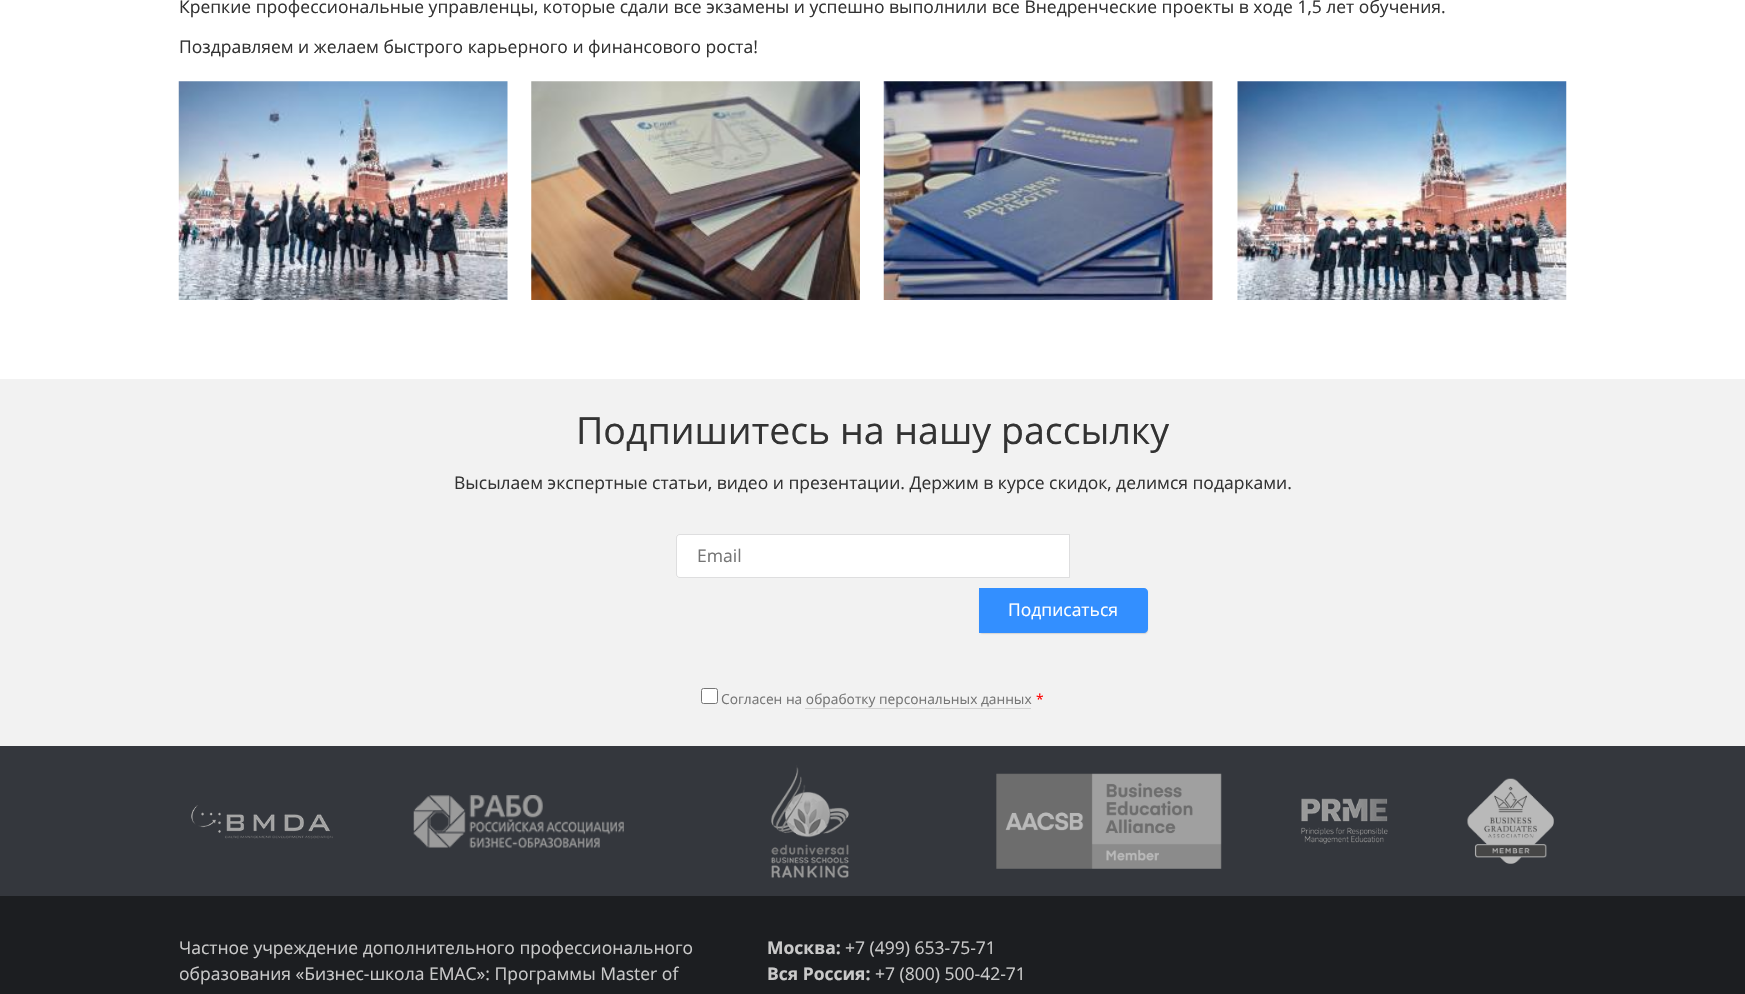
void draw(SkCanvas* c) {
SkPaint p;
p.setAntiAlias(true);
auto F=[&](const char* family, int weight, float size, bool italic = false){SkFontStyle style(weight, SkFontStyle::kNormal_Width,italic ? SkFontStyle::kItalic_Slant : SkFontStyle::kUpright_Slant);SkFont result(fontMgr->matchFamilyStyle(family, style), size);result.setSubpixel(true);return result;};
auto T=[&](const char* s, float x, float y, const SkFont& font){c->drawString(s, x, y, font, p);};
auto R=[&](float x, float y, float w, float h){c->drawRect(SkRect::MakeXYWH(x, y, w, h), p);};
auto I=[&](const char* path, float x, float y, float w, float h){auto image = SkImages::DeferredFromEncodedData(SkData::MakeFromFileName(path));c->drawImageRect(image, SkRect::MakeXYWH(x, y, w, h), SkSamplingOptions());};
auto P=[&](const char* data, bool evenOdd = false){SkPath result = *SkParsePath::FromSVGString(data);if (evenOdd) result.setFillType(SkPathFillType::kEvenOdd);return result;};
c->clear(0xffffffff);
auto f1 = F("Open Sans",400,17.5);
p.setColor(0xff333333);
T("Крепкие профессиональные управленцы, которые сдали все экзамены и успешно выполнили все Внедренческие проекты в ходе 1,5 лет обучения.",179,13,f1);
T("Поздравляем и желаем быстрого карьерного и финансового роста!",179,53,f1);
I("1.png",178,81,330,219);
I("2.png",531,81,329,219);
I("3.png",883,81,330,219);
I("4.png",1237,81,330,219);
p.setColor(0xfff2f2f2);
R(0,379,1745,367);
auto f2 = F("Open Sans",400,37.5);
p.setColor(0xff333333);
T("Подпишитесь на нашу рассылку",576,444,f2);
T("Высылаем экспертные статьи, видео и презентации. Держим в курсе скидок, делимся подарками.",454,489,f1);
p.setColor(0xffffffff);
c->drawPath(P("M680 534h390v44h-390c-2 0-4-2-4-4v-36c0-2 2-4 4-4z"),p);
p.setStroke(true);
p.setStrokeWidth(1);
p.setColor(0x26222426);
c->drawPath(P("M680 534.5h389.5v43h-389.5c-2 0-3.5-1.5-3.5-3.5v-36c0-2 1.5-3.5 3.5-3.5z"),p);
p.setStroke(false);
p.setColor(0xff757575);
T("Email",697,562,f1);
p.setColor(0x1f000000);
p.setMaskFilter(SkMaskFilter::MakeBlur(kNormal_SkBlurStyle, .5));
c->drawRoundRect(SkRect::MakeXYWH(979,589,169,45),4,4,p);
p.setMaskFilter(nullptr);
p.setColor(0xff338fff);
c->drawPath(P("M979 588h165c2 0 4 2 4 4v37c0 2-2 4-4 4h-165z"),p);
p.setColor(0xffffffff);
T("Подписаться",1008,616,f1);
c->drawRoundRect(SkRect::MakeXYWH(701.5,688.5,16,15),2,2,p);
p.setStroke(true);
p.setColor(0xff767676);
c->drawRoundRect(SkRect::MakeXYWH(701.5,688.5,16,15),2,2,p);
auto f3 = F("Open Sans",400,13.75);
p.setStroke(false);
p.setColor(0xff757575);
T("Согласен на обработку персональных данных",721,704,f3);
p.setColor(0xffd3d3d3);
R(805,708,226,1);
p.setColor(0xffff0000);
T("*",1036,704,f3);
p.setColor(0xff34373d);
R(0,746,1745,150);
I("5.png",191,805,142,34);
I("6.png",413,795,211,53);
I("7.png",771,765,78,113);
I("8.png",996,773,226,96);
I("9.png",1301,798,87,46);
I("10.png",1467,778,87,86);
p.setColor(0xff1c1e21);
R(0,896,1745,98);
p.setColor(0xffc9c9c9);
T("Частное учреждение дополнительного профессионального",179,954,f1);
T("образования «Бизнес-школа ЕМАС»: Программы Master of",179,980,f1);
auto f4 = F("Open Sans",700,17.5);
T("Москва:",767,954,f4);
T("+7 (499) 653-75-71",845,954,f1);
T("Вся Россия:",767,980,f4);
T("+7 (800) 500-42-71",875,980,f1);
}
